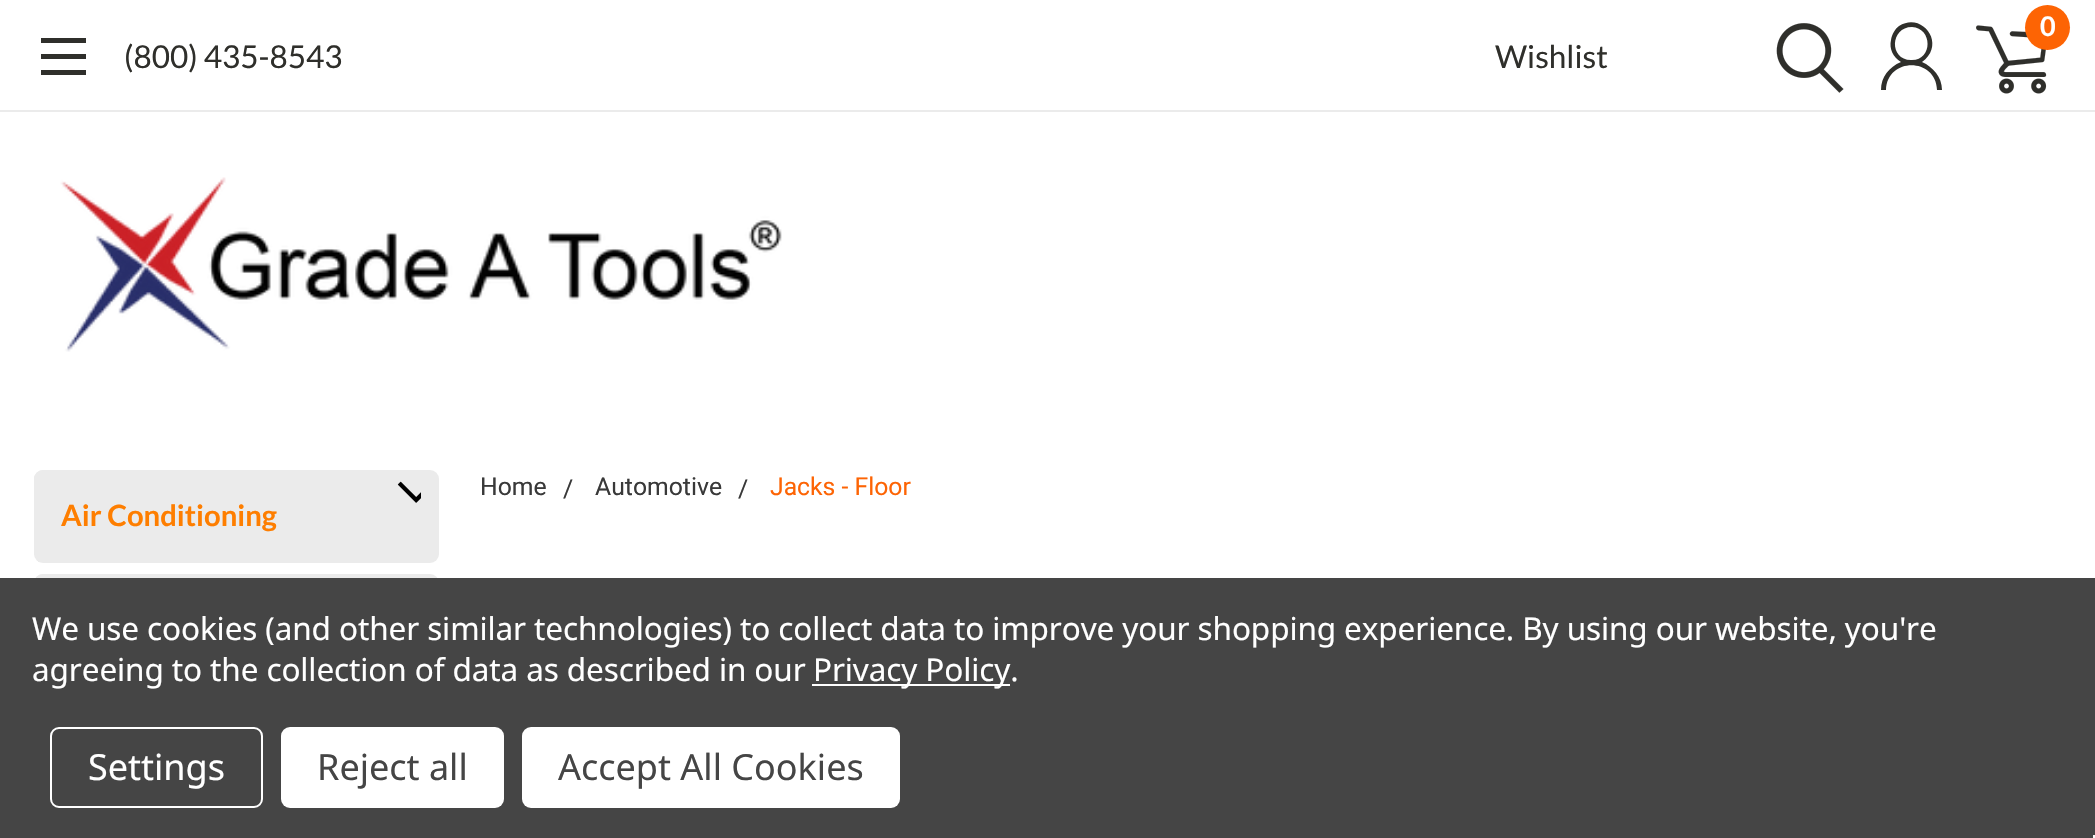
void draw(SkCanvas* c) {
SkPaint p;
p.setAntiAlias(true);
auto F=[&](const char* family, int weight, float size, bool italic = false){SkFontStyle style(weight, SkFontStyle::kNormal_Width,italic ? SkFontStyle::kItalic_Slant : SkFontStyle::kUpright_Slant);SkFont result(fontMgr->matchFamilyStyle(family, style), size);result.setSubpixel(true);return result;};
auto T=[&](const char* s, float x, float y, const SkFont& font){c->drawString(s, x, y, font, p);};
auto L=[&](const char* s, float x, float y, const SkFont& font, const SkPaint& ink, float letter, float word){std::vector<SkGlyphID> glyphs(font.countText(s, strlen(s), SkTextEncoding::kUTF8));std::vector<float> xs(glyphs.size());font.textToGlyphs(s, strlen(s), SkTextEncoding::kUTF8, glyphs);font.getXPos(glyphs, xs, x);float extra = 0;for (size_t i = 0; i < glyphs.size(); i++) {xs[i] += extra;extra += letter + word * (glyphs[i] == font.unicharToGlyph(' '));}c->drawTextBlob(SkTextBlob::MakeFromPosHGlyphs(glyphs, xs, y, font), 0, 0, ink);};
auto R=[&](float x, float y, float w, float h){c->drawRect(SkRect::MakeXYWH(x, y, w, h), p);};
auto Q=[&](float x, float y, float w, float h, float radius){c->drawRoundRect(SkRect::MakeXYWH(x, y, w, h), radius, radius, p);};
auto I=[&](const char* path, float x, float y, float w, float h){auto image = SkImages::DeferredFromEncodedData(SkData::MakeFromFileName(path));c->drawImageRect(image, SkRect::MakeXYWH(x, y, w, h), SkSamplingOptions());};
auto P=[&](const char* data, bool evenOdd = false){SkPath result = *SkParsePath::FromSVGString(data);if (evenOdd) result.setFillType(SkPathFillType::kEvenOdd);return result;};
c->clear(0xffffffff);
p.setColor(0xffebebeb);
R(0,110,2095,2);
I("1.png",1776,23,68,70);
p.setColor(0xff2f2f2b);
c->drawPath(P("M1937 90c-1-33-50-33-51 0h-5c0-13 8-23 20-28c-8-5-12-13-10-22c1-6 4-11 8-14c23-15 48 18 23 36c11 5 20 15 20 28zm-25-63c-22 0-23 33-1 33c22 1 22-32 1-33z"),p);
I("2.png",1976,25,71,69);
p.setColor(0xfffd6404);
c->drawCircle(2047.5,27.5,22.5,p);
auto f1 = F("Lato",700,27);
p.setColor(0xffffffff);
T("0",2040,36,f1);
p.setColor(0xff2f2f2b);
R(41,54,45,5);
R(41,38,45,5);
R(41,70,45,5);
auto f2 = F("Lato",400,31.5);
T("(800) 435-8543",124,68,f2);
T("Wishlist",1495,68,f2);
I("3.png",60,177,722,175);
auto f3 = F("Roboto",400,24.75);
p.setColor(0xff393939);
T("Home",480,495,f3);
T("/",563,497,f3);
T("Automotive",595,495,f3);
T("/",738,497,f3);
p.setColor(0xfffd6404);
T("Jacks - Floor",770,495,f3);
p.setColor(0xffebebeb);
Q(34,470,405,93,9);
R(38,561,1,1);
I("4.png",397,481,24,22);
Q(34,470,344,90,9);
auto f4 = F("Lato",700,29.25);
p.setColor(0xfffe7e00);
T("Air Conditioning",61,526,f4);
p.setColor(0xffebebeb);
Q(34,574,405,92,9);
Q(34,574,344,90,9);
p.setColor(0xff454545);
R(0,578,2095,260);
auto f5 = F("Noto Sans",400,31.5);
p.setColor(0xffffffff);
L("We use cookies (and other similar technologies) to collect data to improve your shopping experience. By using our website, you're",32,640,f5,p,-.11,0);
L("agreeing to the collection of data as described in our",32,681,f5,p,-.11,0);
R(812,684,198,2);
L("Privacy Policy.",813,681,f5,p,-.11,0);
p.setStroke(true);
p.setStrokeWidth(2);
c->drawRoundRect(SkRect::MakeXYWH(51,728,211,79),8,8,p);
auto f6 = F("Noto Sans",400,36);
p.setStroke(false);
T("Settings",88,780,f6);
Q(281,727,223,81,9);
p.setColor(0xff454545);
T("Reject all",317,780,f6);
p.setColor(0xffffffff);
Q(522,727,378,81,9);
p.setColor(0xff454545);
T("Accept All Cookies",558,780,f6);
p.setColor(0xfff5f5f5);
R(2093,835,2,3);
}
